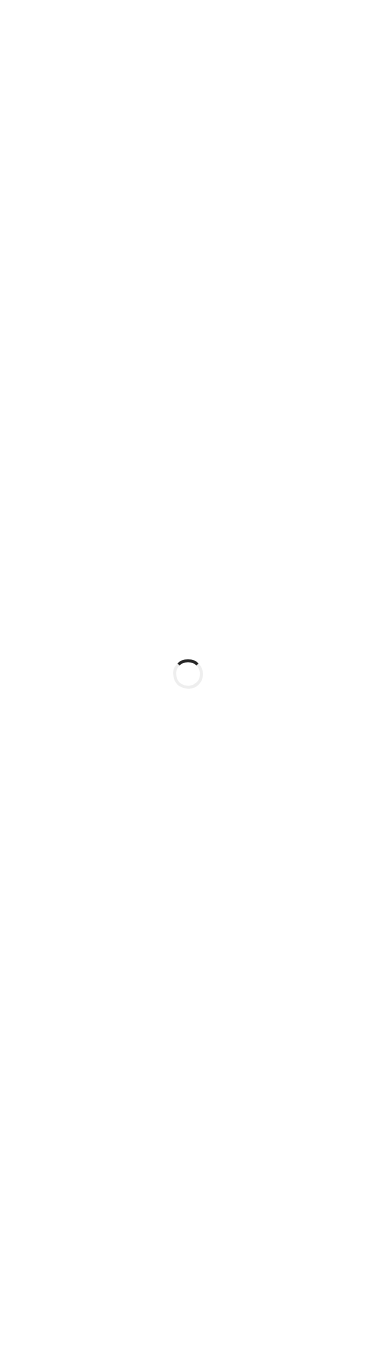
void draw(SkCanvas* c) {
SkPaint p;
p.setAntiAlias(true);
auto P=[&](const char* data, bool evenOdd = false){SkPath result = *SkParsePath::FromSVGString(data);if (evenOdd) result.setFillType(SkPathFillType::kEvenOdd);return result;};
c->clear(0xffffffff);
p.setStroke(true);
p.setStrokeWidth(3);
p.setColor(0xff252525);
c->drawPath(P("M178.5 664.5c5-5 14-5 19 0"),p);
p.setColor(0x33a8a8a8);
c->drawPath(P("M197.5 664.5c2.5 2.5 4 6 4 9.5c0 16-23.5 18.5-26.5 2.5c-1-4 .5-9 3.5-12"),p);
}
